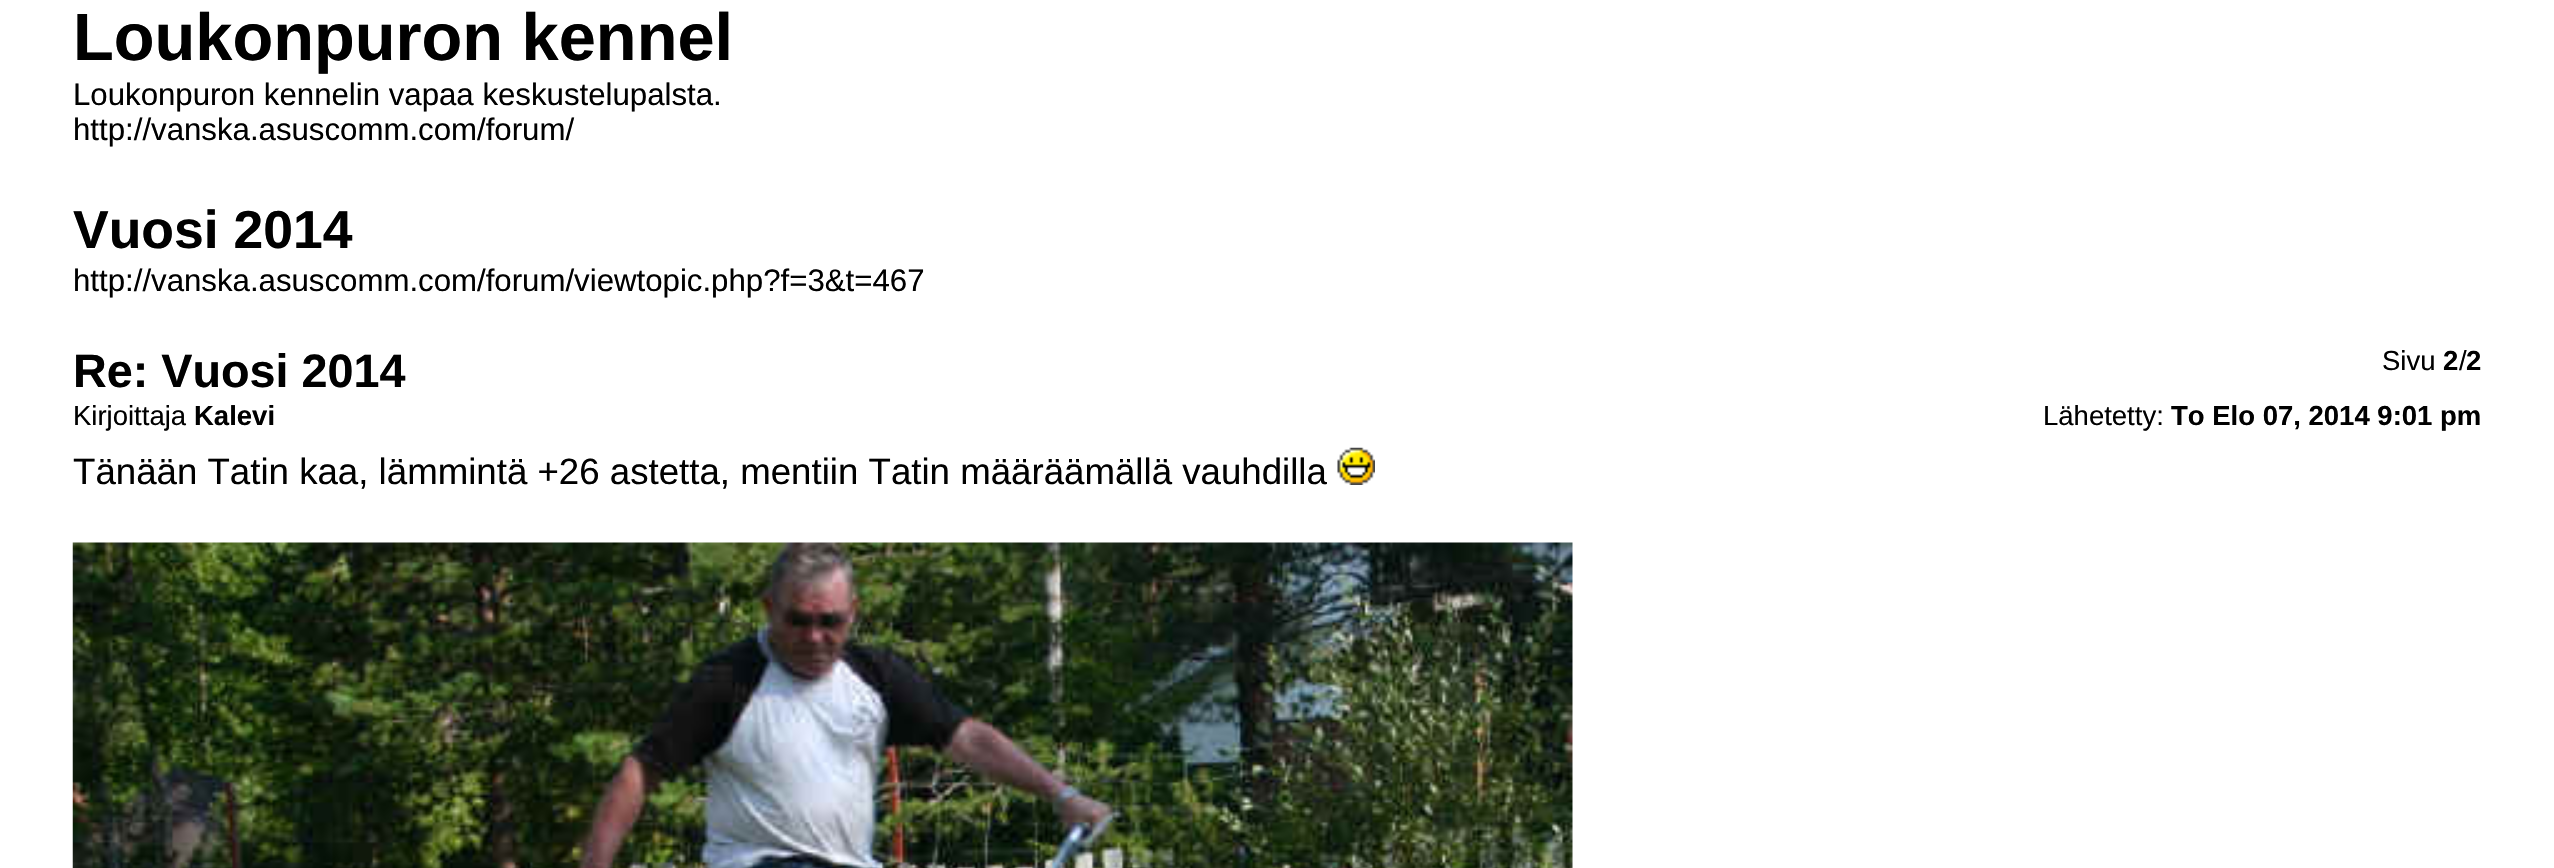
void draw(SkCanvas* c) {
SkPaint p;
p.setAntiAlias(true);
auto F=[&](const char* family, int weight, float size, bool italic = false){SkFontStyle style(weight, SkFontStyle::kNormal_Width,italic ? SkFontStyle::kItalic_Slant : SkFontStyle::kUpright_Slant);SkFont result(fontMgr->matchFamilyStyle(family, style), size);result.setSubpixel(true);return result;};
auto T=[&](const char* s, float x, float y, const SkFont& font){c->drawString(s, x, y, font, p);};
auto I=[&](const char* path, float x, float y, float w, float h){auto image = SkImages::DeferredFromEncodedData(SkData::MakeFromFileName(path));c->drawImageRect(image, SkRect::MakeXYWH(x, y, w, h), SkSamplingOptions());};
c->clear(0xffffffff);
auto f1 = F("Liberation Sans",700,66.75);
p.setColor(0xff000000);
T("Loukonpuron kennel",73,60,f1);
auto f2 = F("Liberation Sans",400,31.2);
T("Loukonpuron kennelin vapaa keskustelupalsta.",73,105,f2);
T("http://vanska.asuscomm.com/forum/",73,140,f2);
auto f3 = F("Liberation Sans",700,53.5);
T("Vuosi 2014",73,248,f3);
T("http://vanska.asuscomm.com/forum/viewtopic.php?f=3&t=467",73,291,f2);
auto f4 = F("Liberation Sans",400,27.5);
T("Sivu",2382,370,f4);
auto f5 = F("Liberation Sans",700,27.5);
T("2 2",2443,370,f5);
T("/",2459,370,f4);
auto f6 = F("Liberation Sans",700,46.75);
T("Re: Vuosi 2014",73,387,f6);
T("Kirjoittaja",73,425,f4);
T("Kalevi",194,425,f5);
T("Lähetetty:",2043,425,f4);
T("To Elo 07, 2014 9:01 pm",2171,425,f5);
auto f7 = F("Liberation Sans",400,36.65);
T("Tänään Tatin kaa, lämmintä +26 astetta, mentiin Tatin määräämällä vauhdilla",73,484,f7);
I("1.png",1337,447,38,38);
I("2.png",72,542,1501,326);
}
